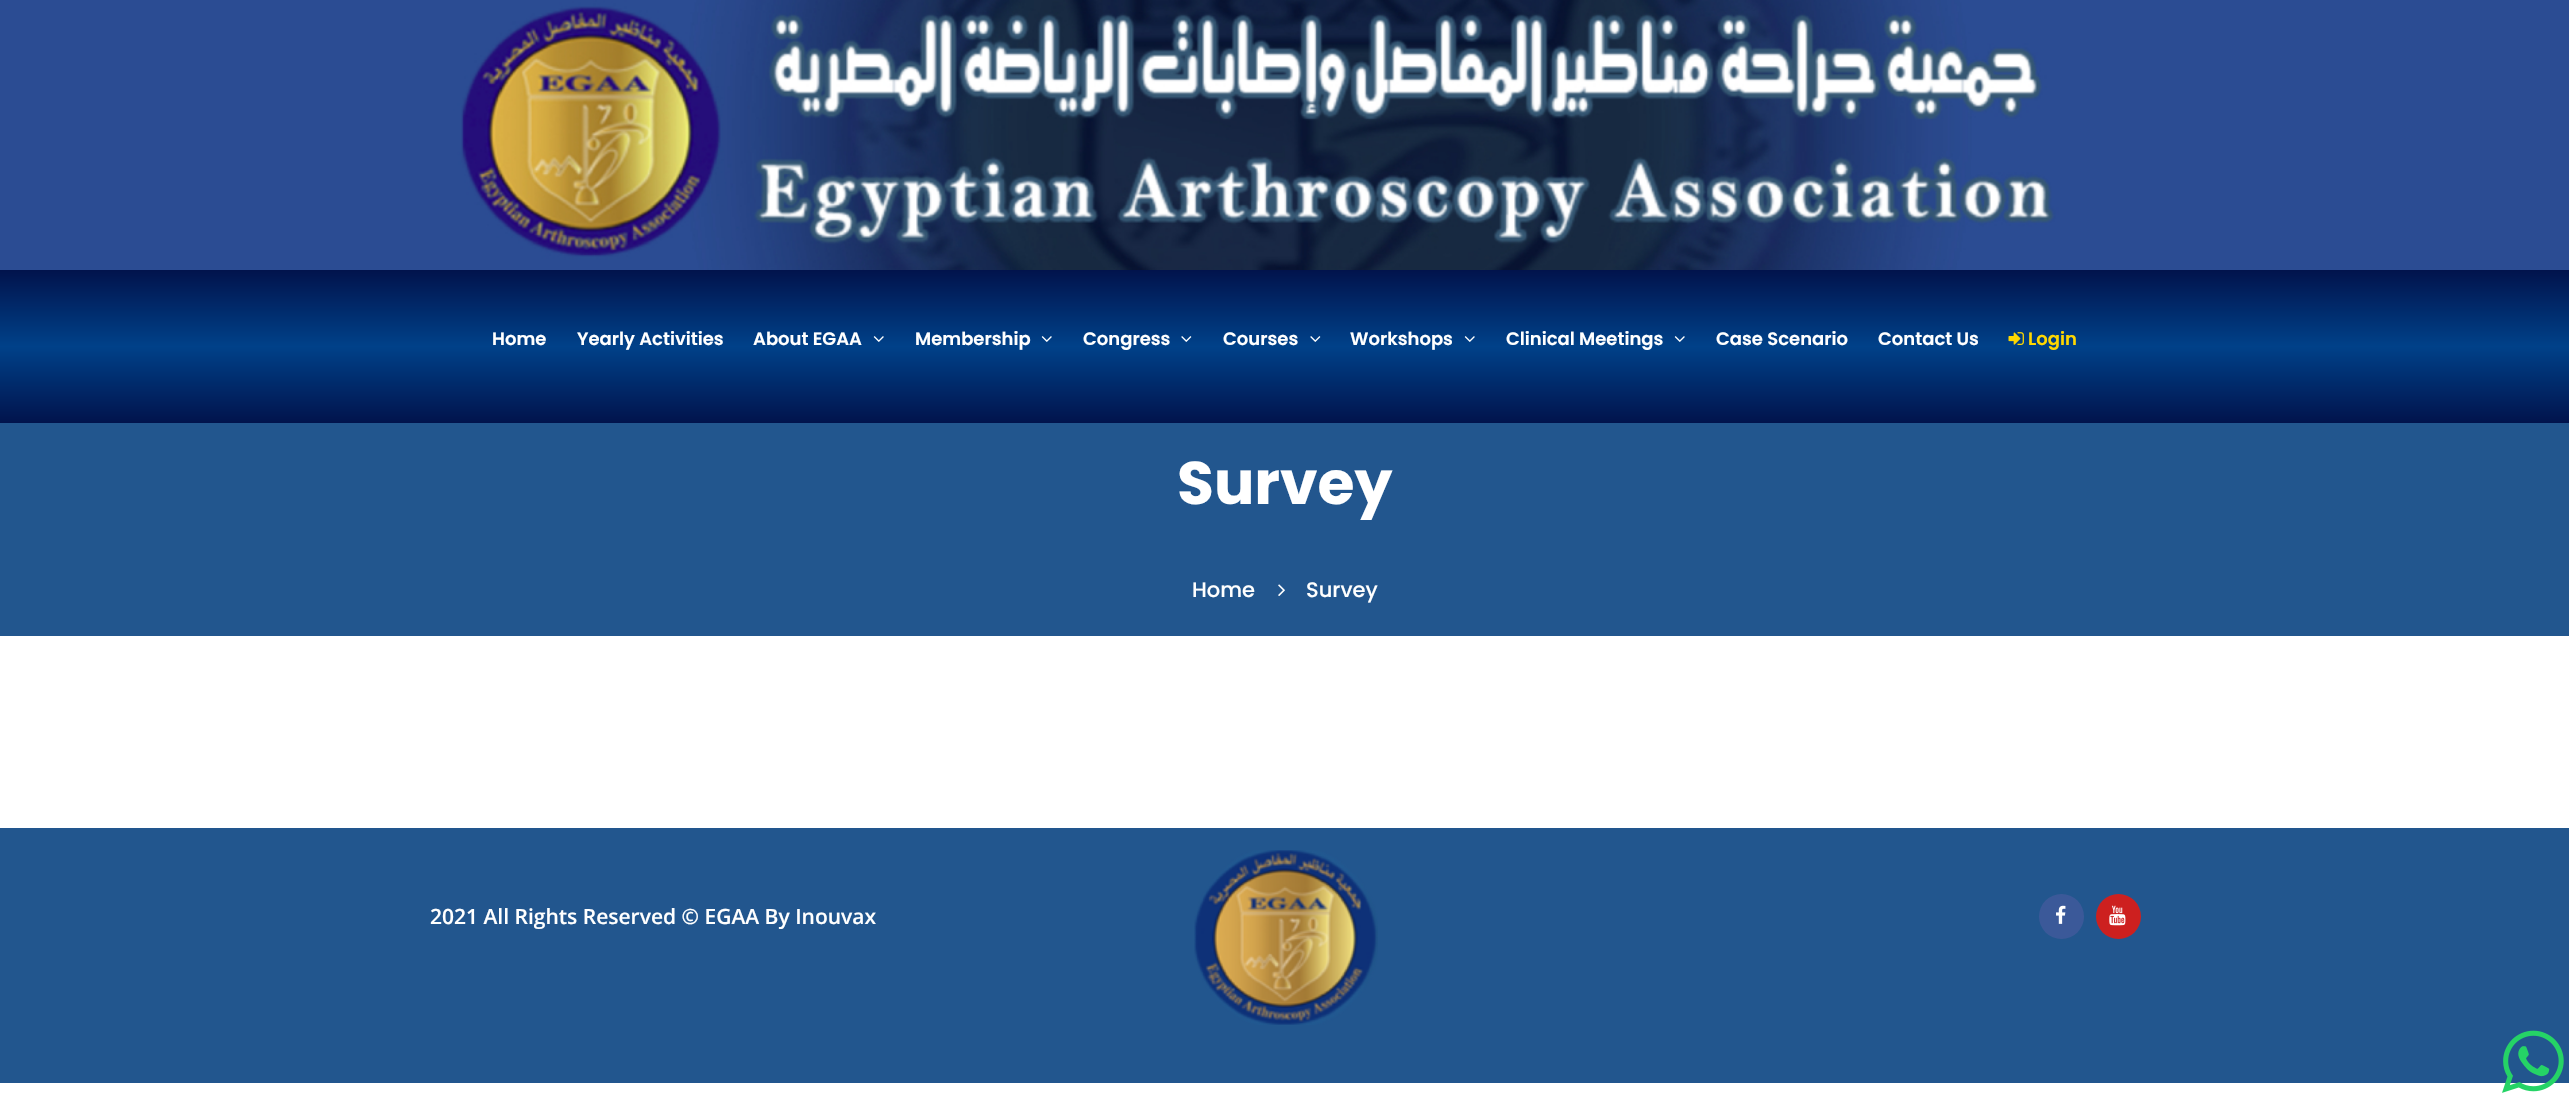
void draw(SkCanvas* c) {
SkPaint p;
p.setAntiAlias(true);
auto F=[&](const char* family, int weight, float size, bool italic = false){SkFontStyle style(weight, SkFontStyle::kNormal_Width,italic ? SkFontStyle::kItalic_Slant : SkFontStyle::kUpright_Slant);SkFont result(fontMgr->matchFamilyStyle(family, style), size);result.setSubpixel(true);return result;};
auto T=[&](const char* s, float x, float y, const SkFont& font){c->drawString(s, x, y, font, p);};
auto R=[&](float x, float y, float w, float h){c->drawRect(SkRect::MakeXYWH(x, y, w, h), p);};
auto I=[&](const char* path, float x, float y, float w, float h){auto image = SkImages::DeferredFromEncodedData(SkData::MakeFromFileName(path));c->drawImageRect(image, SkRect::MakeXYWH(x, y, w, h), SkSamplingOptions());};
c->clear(0xffffffff);
I("1.png",0,0,2569,270);
{
const SkColor colors[] = {0xff01134c,0xff004189,0xff01134c};
const float stops[] = {0,.5,1};
const SkPoint ends[] = {{1285,270}, {1285,423}};
p.setShader(SkGradientShader::MakeLinear(ends, colors, stops, 3, SkTileMode::kClamp));
p.setAlpha(255);
}
R(0,270,2569,153);
auto f1 = F("Poppins",600,18);
p.setShader(nullptr);
p.setColor(0xffffffff);
T("Home",492,345,f1);
T("Yearly Activities",577,345,f1);
T("About EGAA",753,345,f1);
I("2.png",873,336,11,6);
T("Membership",915,345,f1);
I("2.png",1041,336,11,6);
T("Congress",1083,345,f1);
I("3.png",1181,336,11,6);
T("Courses",1223,345,f1);
I("3.png",1310,336,11,6);
T("Workshops",1350,345,f1);
I("2.png",1464,336,11,6);
T("Clinical Meetings",1506,345,f1);
I("2.png",1674,336,11,6);
T("Case Scenario",1716,345,f1);
T("Contact Us",1878,345,f1);
I("4.png",2008,332,16,13);
p.setColor(0xffffd700);
T("Login",2028,345,f1);
p.setColor(0xff22568e);
R(0,423,2569,213);
auto f2 = F("Poppins",700,60);
p.setColor(0xffffffff);
T("Survey",1177,504,f2);
auto f3 = F("Poppins",500,21);
T("Home",1192,597,f3);
I("5.png",1278,584,7,12);
T("Survey",1306,597,f3);
p.setColor(0xff22568e);
R(0,828,2569,255);
auto f4 = F("Open Sans",600,21);
p.setColor(0xffffffff);
T("2021 All Rights Reserved © EGAA By Inouvax",430,924,f4);
I("6.png",1194,850,184,175);
p.setColor(0xff3b5999);
c->drawCircle(2061.5,916.5,22.5,p);
I("7.png",2056,905,10,19);
p.setColor(0xffcd201f);
c->drawCircle(2118.5,916.5,22.5,p);
I("8.png",2109,905,17,21);
I("9.png",2502,1030,62,63);
}
